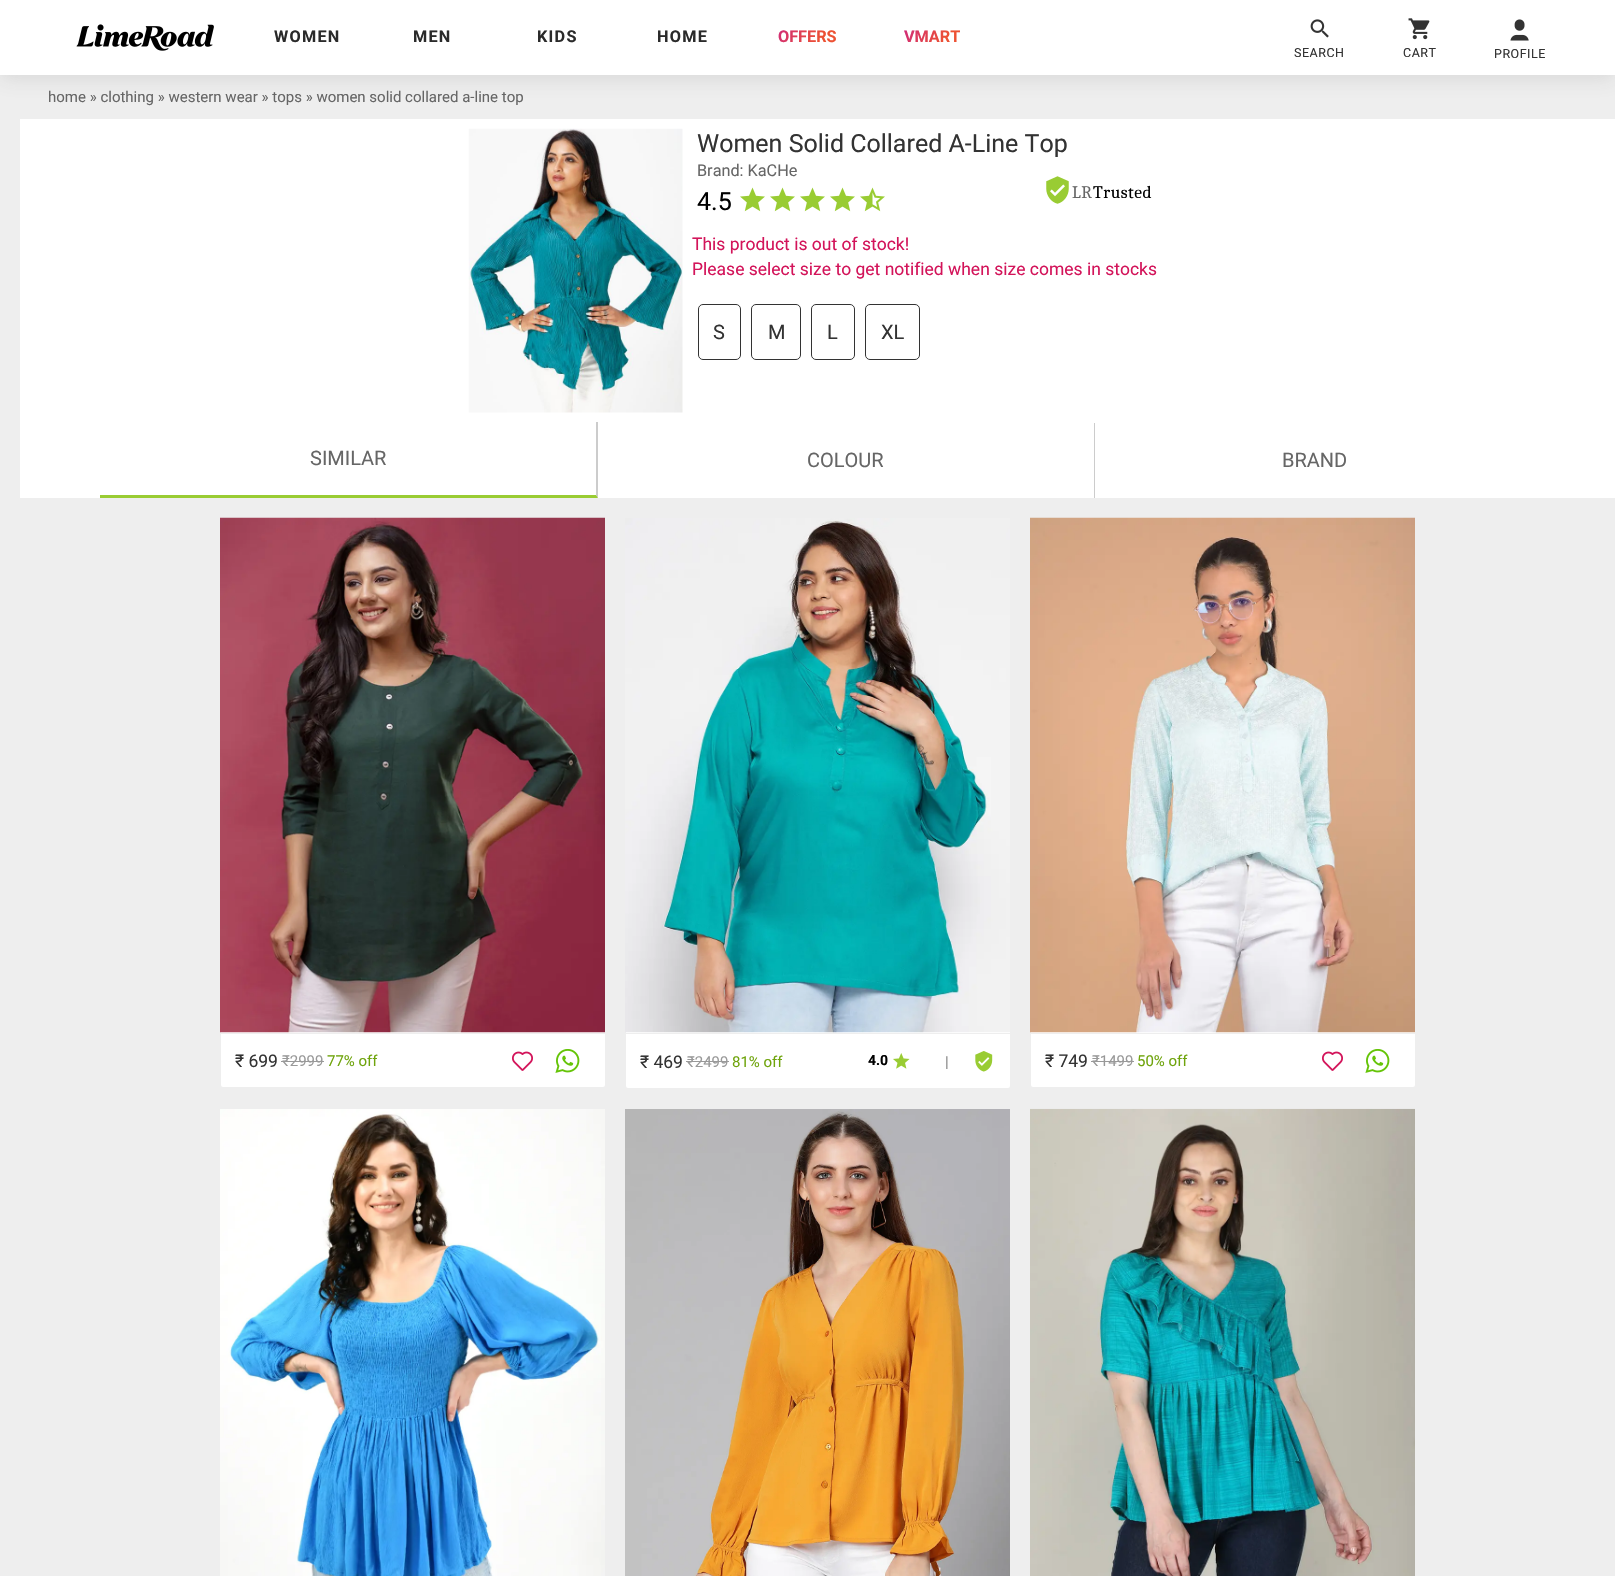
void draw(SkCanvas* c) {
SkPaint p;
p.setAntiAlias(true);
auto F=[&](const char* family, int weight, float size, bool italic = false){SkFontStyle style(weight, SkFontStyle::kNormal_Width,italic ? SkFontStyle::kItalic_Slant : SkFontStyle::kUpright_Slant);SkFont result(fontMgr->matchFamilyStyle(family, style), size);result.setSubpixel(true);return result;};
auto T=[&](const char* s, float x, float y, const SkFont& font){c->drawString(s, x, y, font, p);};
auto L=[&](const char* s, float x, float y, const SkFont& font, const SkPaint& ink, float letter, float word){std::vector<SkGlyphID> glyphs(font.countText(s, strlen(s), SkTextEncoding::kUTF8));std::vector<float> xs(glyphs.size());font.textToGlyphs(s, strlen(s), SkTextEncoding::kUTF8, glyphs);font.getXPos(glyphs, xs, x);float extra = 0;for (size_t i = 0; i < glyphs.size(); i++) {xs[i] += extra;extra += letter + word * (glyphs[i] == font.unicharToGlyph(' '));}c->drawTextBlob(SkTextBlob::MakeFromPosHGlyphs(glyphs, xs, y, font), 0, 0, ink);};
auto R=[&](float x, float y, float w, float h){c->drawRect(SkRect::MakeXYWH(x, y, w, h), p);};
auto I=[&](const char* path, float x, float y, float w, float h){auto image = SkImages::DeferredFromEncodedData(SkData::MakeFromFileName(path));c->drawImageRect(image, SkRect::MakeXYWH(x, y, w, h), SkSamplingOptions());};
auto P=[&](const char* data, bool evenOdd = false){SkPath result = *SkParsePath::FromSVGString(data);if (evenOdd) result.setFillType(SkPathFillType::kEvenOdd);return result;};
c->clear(0xffeeeeee);
p.setColor(0x29555555);
p.setMaskFilter(SkMaskFilter::MakeBlur(kNormal_SkBlurStyle, 10));
c->drawRect(SkRect::MakeXYWH(0,3,1615,75),p);
p.setMaskFilter(nullptr);
p.setColor(0xffffffff);
R(0,0,1615,75);
I("1.png",76,24,138,27);
auto f1 = F("Roboto",700,16.25);
p.setColor(0xff2a2a2a);
L("WOMEN",274,42,f1,p,1.25,0);
L("MEN",413,42,f1,p,1.25,0);
L("KIDS",537,42,f1,p,1.25,0);
L("HOME",657,42,f1,p,1.25,0);
{
const SkColor colors[] = {0xffce297e,0xffed5133};
const float stops[] = {0,.73};
const SkPoint ends[] = {{780,19}, {832,53}};
p.setShader(SkGradientShader::MakeLinear(ends, colors, stops, 2, SkTileMode::kClamp));
p.setAlpha(255);
}
T("OFFERS",778,42,f1);
{
const SkColor colors[] = {0xffce297e,0xffed5133};
const float stops[] = {0,.73};
const SkPoint ends[] = {{906,20}, {957,52}};
p.setShader(SkGradientShader::MakeLinear(ends, colors, stops, 2, SkTileMode::kClamp));
p.setAlpha(255);
}
T("VMART",904,42,f1);
I("2.png",1310,19,19,19);
auto f2 = F("Roboto",400,12.5);
p.setShader(nullptr);
p.setColor(0xff333333);
L("SEARCH",1294,57,f2,p,.5,0);
I("3.png",1408,18,22,22);
L("CART",1403,57,f2,p,.5,0);
I("4.png",1510,19,19,22);
L("PROFILE",1494,58,f2,p,.5,0);
auto f3 = F("Roboto",400,15);
p.setColor(0xff666666);
T("home » clothing » western wear » tops » women solid collared a-line top",48,102,f3);
p.setColor(0xffffffff);
R(20,119,1595,379);
I("5.png",468,128,215,285);
auto f4 = F("Roboto",400,25);
p.setColor(0xff333333);
T("Women Solid Collared A-Line Top",697,152,f4);
auto f5 = F("Roboto",400,16.25);
p.setColor(0xff666666);
T("Brand: KaCHe",697,176,f5);
p.setColor(0xff000000);
T("4.5",697,210,f4);
I("6.png",740,187,25,25);
I("6.png",770,187,25,25);
I("6.png",800,187,25,25);
I("6.png",830,187,25,25);
I("7.png",860,187,25,25);
I("8.png",1046,176,23,28);
auto f6 = F("Caladea",400,17.5);
p.setColor(0xff666666);
L("LR",1072,198,f6,p,.5,0);
p.setColor(0xff000000);
L("Trusted",1093,198,f6,p,.5,0);
auto f7 = F("Roboto",400,17.5);
p.setColor(0xffd3145a);
T("This product is out of stock!",692,250,f7);
T("Please select size to get notified when size comes in stocks",692,275,f7);
p.setStroke(true);
p.setStrokeWidth(1);
p.setColor(0xff333333);
c->drawRoundRect(SkRect::MakeXYWH(698.5,304.5,42,55),4.5,4.5,p);
auto f8 = F("Roboto",400,20);
p.setStroke(false);
T("S",713,339,f8);
p.setStroke(true);
c->drawRoundRect(SkRect::MakeXYWH(751.5,304.5,49,55),4.5,4.5,p);
p.setStroke(false);
T("M",768,339,f8);
p.setStroke(true);
c->drawRoundRect(SkRect::MakeXYWH(811.5,304.5,43,55),4.5,4.5,p);
p.setStroke(false);
T("L",827,339,f8);
p.setStroke(true);
c->drawRoundRect(SkRect::MakeXYWH(865.5,304.5,54,55),4.5,4.5,p);
p.setStroke(false);
T("XL",881,339,f8);
p.setColor(0xffcccccc);
c->drawPath(P("M598 422v76l-2-3v-73z"),p);
p.setColor(0xff99cc33);
c->drawPath(P("M598 498h-498v-3h496z"),p);
p.setColor(0xff666666);
T("SIMILAR",310,465,f8);
p.setColor(0xffcccccc);
R(1094,423,1,75);
p.setColor(0xff666666);
T("COLOUR",807,467,f8);
T("BRAND",1282,467,f8);
p.setColor(0xffffffff);
c->drawRoundRect(SkRect::MakeXYWH(219.5,516.5,387,572),3.5,3.5,p);
p.setStroke(true);
p.setStrokeWidth(3);
p.setColor(0xffeeeeee);
c->drawRoundRect(SkRect::MakeXYWH(219.5,516.5,387,572),3.5,3.5,p);
I("9.png",220,517,385,516);
p.setStroke(false);
R(220,1033,385,1);
p.setColor(0xff333333);
T("₹ 699",235,1067,f7);
p.setColor(0xff999999);
T("₹2999",282,1066,f3);
R(281,1061,43,1);
p.setColor(0xff6fa40c);
T("77% off",327,1066,f3);
I("10.png",512,1051,21,20);
I("11.png",555,1049,25,24);
p.setColor(0xffffffff);
c->drawRoundRect(SkRect::MakeXYWH(624.5,516.5,387,573),3.5,3.5,p);
p.setStroke(true);
p.setColor(0xffeeeeee);
c->drawRoundRect(SkRect::MakeXYWH(624.5,516.5,387,573),3.5,3.5,p);
I("12.png",625,518,385,515);
p.setStroke(false);
R(625,1033,385,1);
p.setColor(0xff333333);
T("₹ 469",640,1068,f7);
p.setColor(0xff999999);
T("₹2499",687,1067,f3);
R(686,1061,43,1);
p.setColor(0xff6fa40c);
T("81% off",732,1067,f3);
auto f9 = F("Roboto",700,14);
p.setColor(0xff000000);
T("4.0",868,1065,f9);
I("13.png",893,1053,17,16);
p.setColor(0xff888888);
T("|",945,1067,f3);
I("14.png",975,1051,18,21);
p.setColor(0xffffffff);
c->drawRoundRect(SkRect::MakeXYWH(1029.5,516.5,387,572),3.5,3.5,p);
p.setStroke(true);
p.setColor(0xffeeeeee);
c->drawRoundRect(SkRect::MakeXYWH(1029.5,516.5,387,572),3.5,3.5,p);
I("15.png",1030,517,385,516);
p.setStroke(false);
R(1030,1033,385,1);
p.setColor(0xff333333);
T("₹ 749",1045,1067,f7);
p.setColor(0xff999999);
T("₹1499",1092,1066,f3);
R(1091,1061,43,1);
p.setColor(0xff6fa40c);
T("50% off",1137,1066,f3);
I("10.png",1322,1051,21,20);
I("11.png",1365,1049,25,24);
I("16.png",220,1109,385,467);
I("17.png",625,1109,385,467);
I("18.png",1030,1108,385,468);
}
